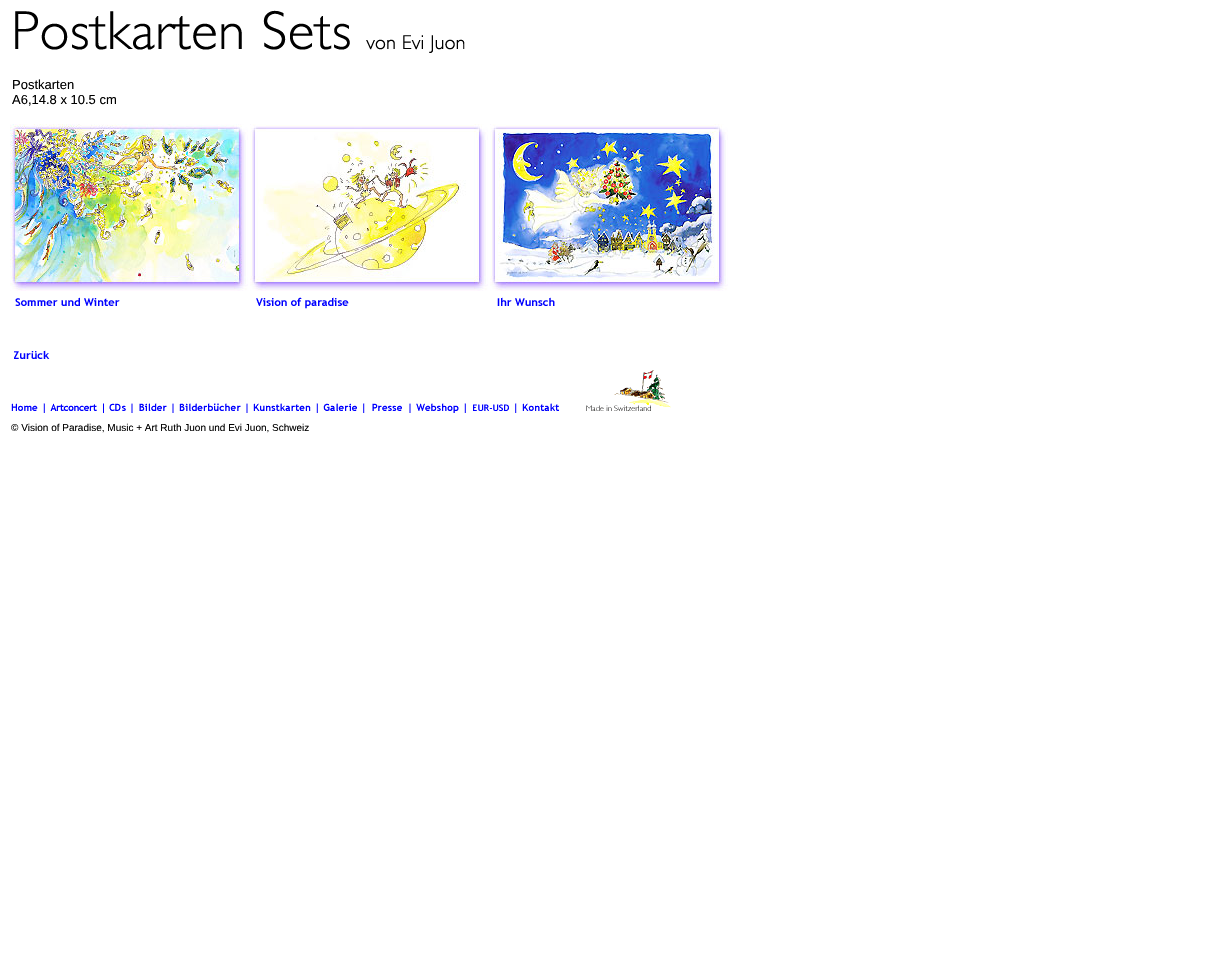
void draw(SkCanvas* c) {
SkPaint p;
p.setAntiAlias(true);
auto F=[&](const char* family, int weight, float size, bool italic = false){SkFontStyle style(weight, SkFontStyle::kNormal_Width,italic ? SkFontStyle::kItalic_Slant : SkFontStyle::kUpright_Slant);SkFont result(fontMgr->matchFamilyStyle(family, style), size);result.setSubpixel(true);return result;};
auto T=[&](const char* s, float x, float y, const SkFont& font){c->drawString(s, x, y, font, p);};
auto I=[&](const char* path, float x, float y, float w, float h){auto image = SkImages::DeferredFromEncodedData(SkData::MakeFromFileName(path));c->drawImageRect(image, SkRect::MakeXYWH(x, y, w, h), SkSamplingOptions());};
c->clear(0xffffffff);
I("1.png",15,10,450,43);
auto f1 = F("Liberation Sans",400,13);
p.setColor(0xff000000);
T("Postkarten",12,89,f1);
T("A6,14.8 x 10.5 cm",12,104,f1);
I("2.png",10,124,238,167);
I("3.png",250,124,238,167);
I("4.png",490,124,238,167);
I("5.png",15,297,105,9);
I("6.png",256,297,93,12);
I("7.png",497,297,58,9);
I("8.png",14,350,36,9);
I("9.png",11,403,548,10);
I("10.png",586,370,85,41);
auto f2 = F("Liberation Sans",400,10);
T("© Vision of Paradise, Music + Art Ruth Juon und Evi Juon, Schweiz",11,431,f2);
}
